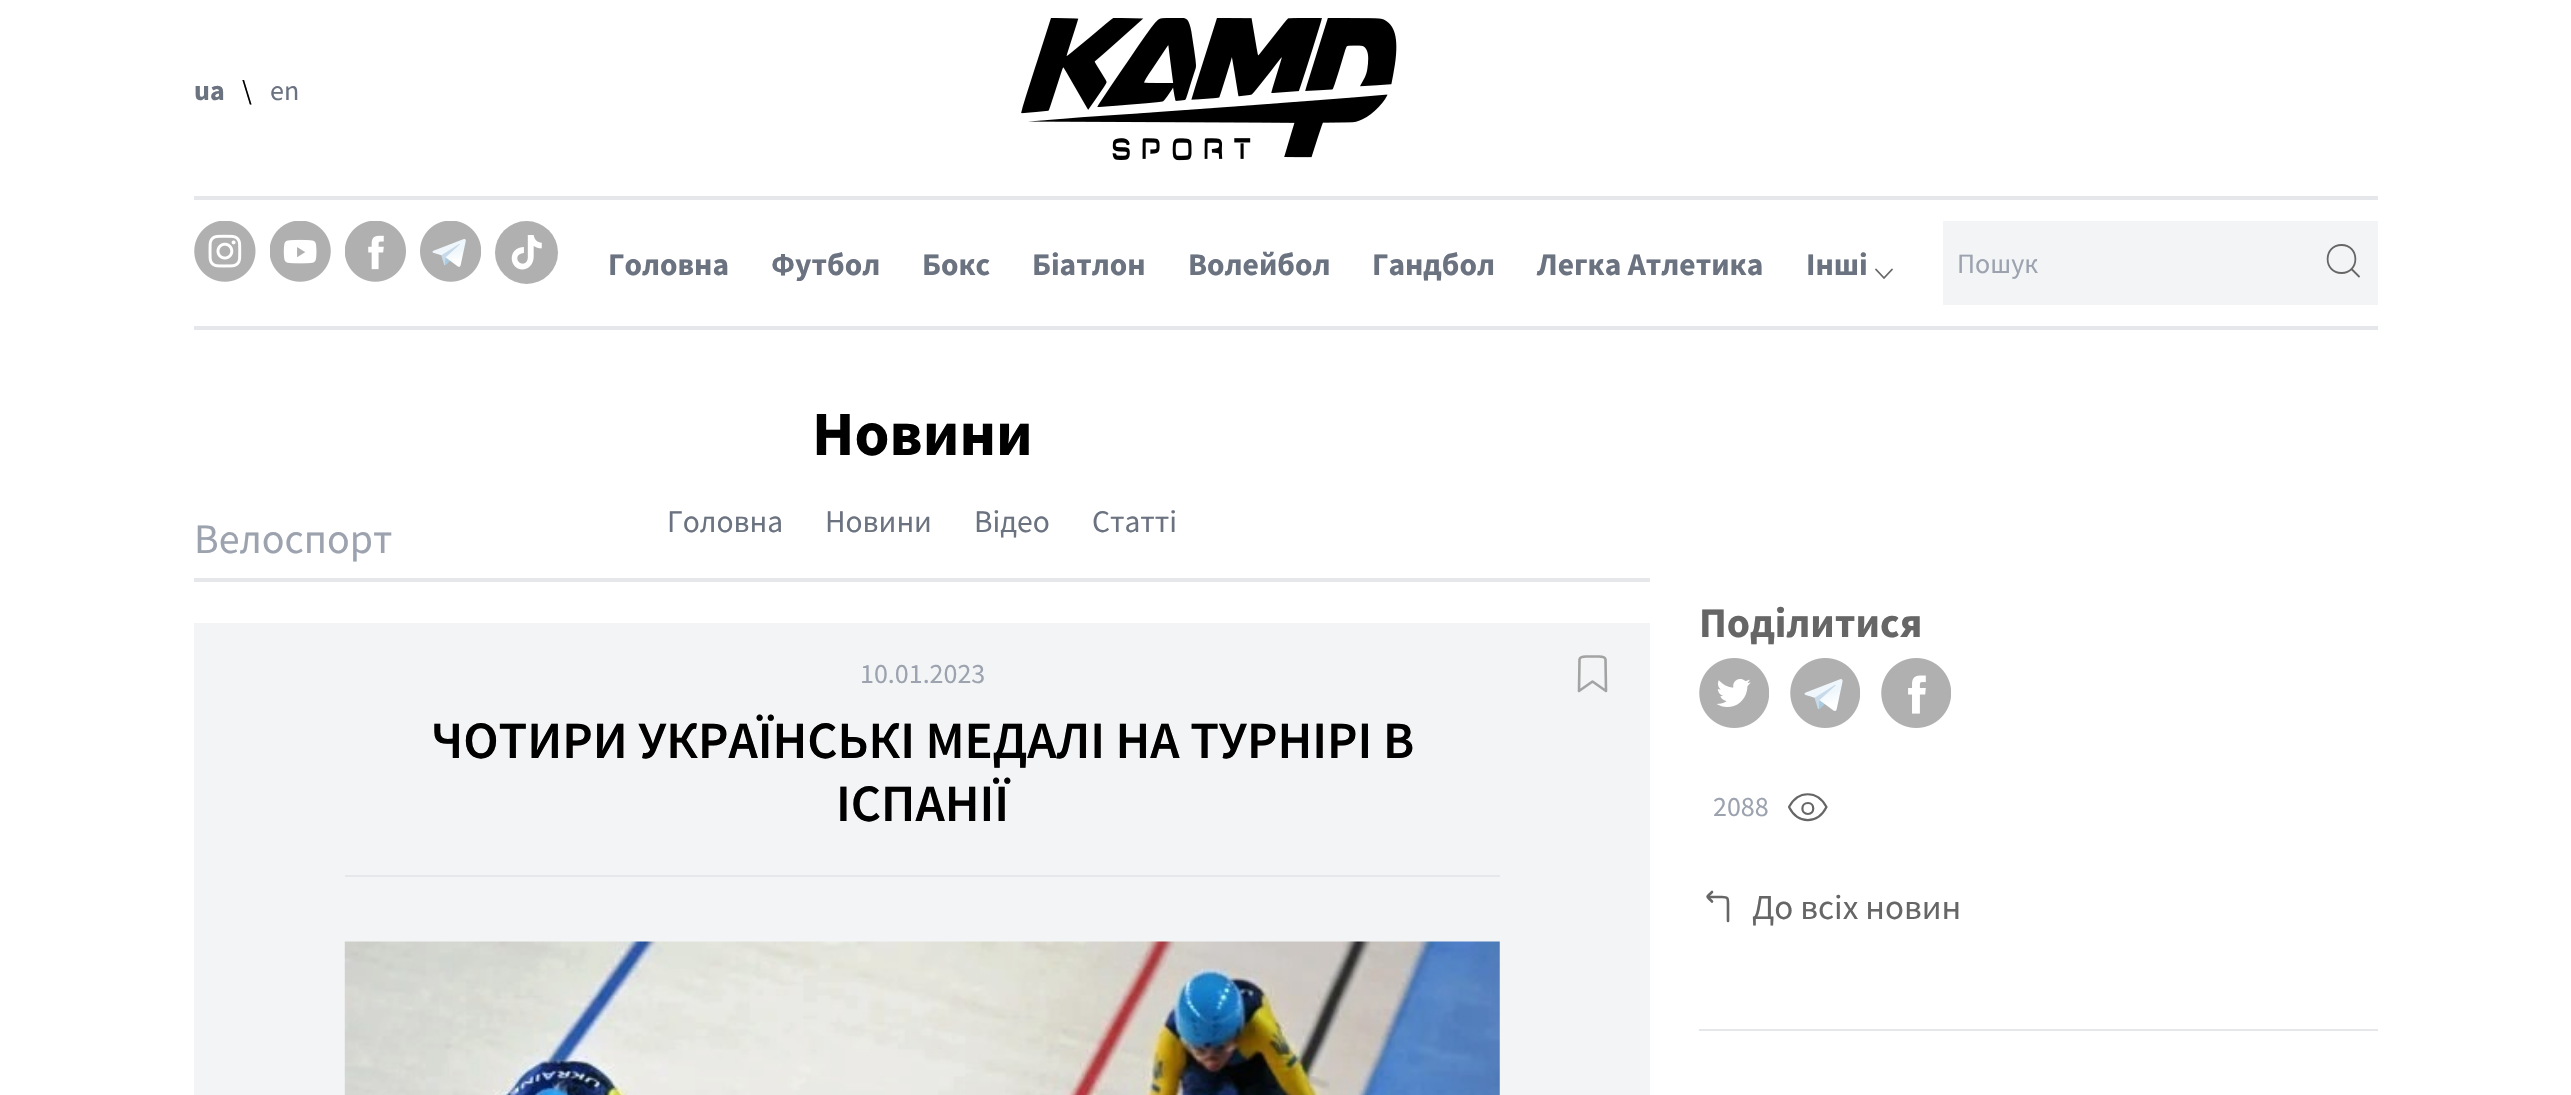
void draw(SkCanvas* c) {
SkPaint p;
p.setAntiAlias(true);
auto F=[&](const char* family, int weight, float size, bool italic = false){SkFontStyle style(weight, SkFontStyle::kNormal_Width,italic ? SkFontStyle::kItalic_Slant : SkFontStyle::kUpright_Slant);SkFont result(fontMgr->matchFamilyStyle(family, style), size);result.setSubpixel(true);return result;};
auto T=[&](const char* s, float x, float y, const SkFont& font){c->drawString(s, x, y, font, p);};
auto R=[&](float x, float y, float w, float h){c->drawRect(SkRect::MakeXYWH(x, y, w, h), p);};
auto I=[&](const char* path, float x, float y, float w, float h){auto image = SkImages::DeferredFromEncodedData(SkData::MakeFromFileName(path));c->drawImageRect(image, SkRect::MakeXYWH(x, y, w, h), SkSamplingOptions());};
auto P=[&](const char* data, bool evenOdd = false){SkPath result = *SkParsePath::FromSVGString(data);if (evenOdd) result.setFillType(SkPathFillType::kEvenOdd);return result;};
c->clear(0xffffffff);
auto f1 = F("Source Sans Pro",700,28);
p.setColor(0xff6b7280);
T("ua",194,100,f1);
auto f2 = F("Source Sans Pro",400,28);
p.setColor(0xff000000);
T("\\",242,100,f2);
p.setColor(0xff6b7280);
T("en",270,100,f2);
I("1.png",1021,18,376,143);
p.setColor(0xffe5e7eb);
R(194,196,2184,4);
R(194,326,2184,4);
I("2.png",194,221,62,61);
I("3.png",270,221,61,61);
I("4.png",345,221,61,61);
I("5.png",420,221,61,61);
p.setColor(0xffb0b0b0);
c->drawCircle(526.5,252.5,31.5,p);
I("6.png",511,235,31,35);
auto f3 = F("Source Sans Pro",700,31.5);
p.setColor(0xff6b7280);
T("Головна",608,275,f3);
T("Футбол",771,275,f3);
T("Бокс",922,275,f3);
T("Біатлон",1032,275,f3);
T("Волейбол",1188,275,f3);
T("Гандбол",1372,275,f3);
T("Легка Атлетика",1537,275,f3);
T("Інші",1806,275,f3);
p.setStroke(true);
p.setStrokeWidth(1.8);
p.setStrokeCap(SkPaint::kRound_Cap);
p.setStrokeJoin(SkPaint::kRound_Join);
p.setColor(0xff666666);
c->drawPath(P("M1876 269.5l8 8.5l8-8.5"),p);
p.setStroke(false);
p.setColor(0xfff3f4f6);
R(1943,221,435,84);
p.setColor(0xff9ca3af);
T("Пошук",1957,273,f2);
p.setStroke(true);
p.setColor(0xff666666);
c->drawPath(P("M2341.5 273c18.5 0 18.5-28 0-28c-18.5 0-18.5 28 0 28zm17.5 3.5l-7.5-7.5"),p);
auto f4 = F("Source Sans Pro",700,63);
p.setStroke(false);
p.setColor(0xff000000);
T("Новини",812,455,f4);
auto f5 = F("Source Sans Pro",400,42);
p.setColor(0xff9ca3af);
T("Велоспорт",194,553,f5);
p.setColor(0xffe5e7eb);
R(194,578,1456,4);
auto f6 = F("Source Sans Pro",400,31.5);
p.setColor(0xff6b7280);
T("Головна",667,532,f6);
T("Новини",825,532,f6);
T("Відео",974,532,f6);
T("Статті",1092,532,f6);
p.setColor(0xfff3f4f6);
R(194,623,1456,472);
p.setColor(0xff9ca3af);
T("10.01.2023",860,683,f2);
p.setStroke(true);
p.setStrokeWidth(2.6);
p.setColor(0xffa3a3a3);
c->drawPath(P("M1606 691l-13.5-9.5l-13.5 9.5l.5-31.5c.5-3 4-3 6.5-3h13c2.5 0 6 0 6.5 3z"),p);
auto f7 = F("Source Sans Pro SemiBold",600,52.5);
p.setStroke(false);
p.setColor(0xff000000);
T("ЧОТИРИ УКРАЇНСЬКІ МЕДАЛІ НА ТУРНІРІ В",431,758,f7);
T("ІСПАНІЇ",836,821,f7);
p.setColor(0xffe5e7eb);
R(345,875,1155,2);
I("7.png",344,941,1156,154);
R(1699,1029,679,2);
auto f8 = F("Source Sans Pro",700,42);
p.setColor(0xff666666);
T("Поділитися",1699,637,f8);
I("8.png",1699,658,70,70);
I("9.png",1790,658,70,70);
I("10.png",1881,658,70,70);
p.setColor(0xff9ca3af);
T("2088",1713,816,f2);
p.setStroke(true);
p.setStrokeWidth(2.2);
p.setColor(0xff666666);
c->drawPath(P("M1789 807c9-17 28.5-17 37.5 0c-9 17.5-28.5 17.5-37.5 0zm19 7c7 0 7-11 0-11c-7.5 0-7.5 11 0 11z"),p);
p.setStrokeWidth(2.6);
c->drawPath(P("M1709 897h13c6 0 6 1 6 6.5v17.5m-16-19.5c-6-6-6-3.5 0-9.5"),p);
auto f9 = F("Source Sans Pro",400,35);
p.setStroke(false);
T("До всіх новин",1752,919,f9);
}
